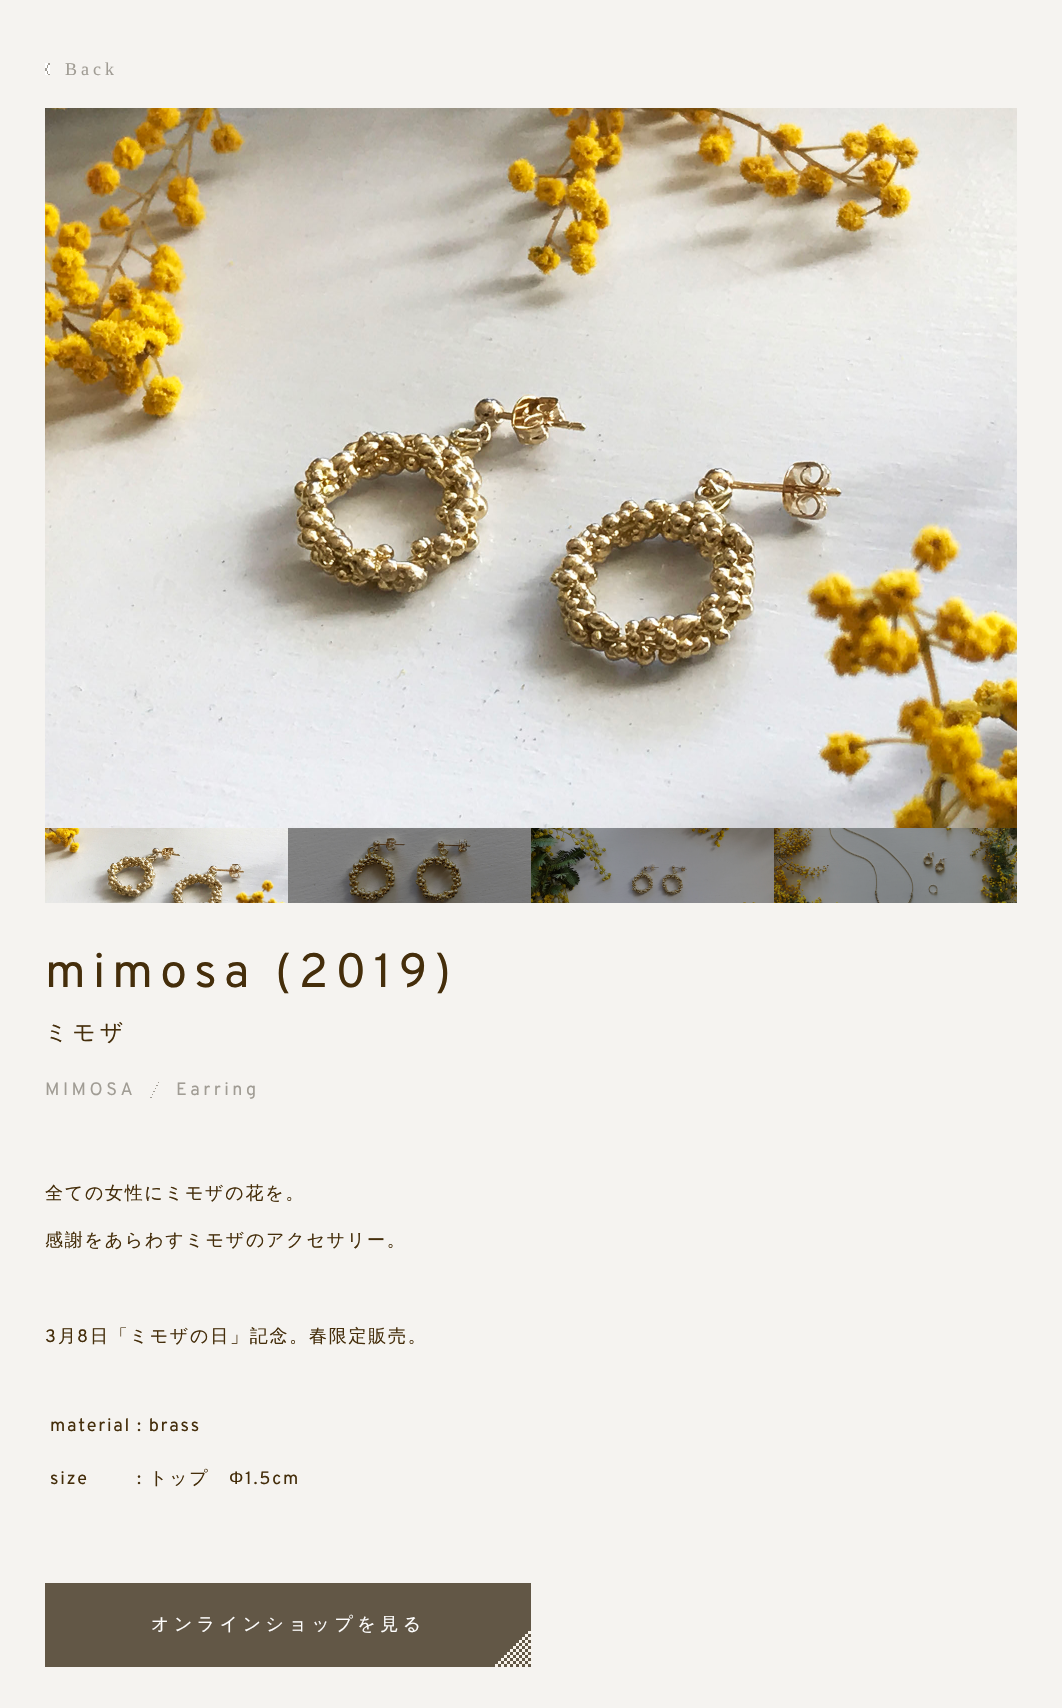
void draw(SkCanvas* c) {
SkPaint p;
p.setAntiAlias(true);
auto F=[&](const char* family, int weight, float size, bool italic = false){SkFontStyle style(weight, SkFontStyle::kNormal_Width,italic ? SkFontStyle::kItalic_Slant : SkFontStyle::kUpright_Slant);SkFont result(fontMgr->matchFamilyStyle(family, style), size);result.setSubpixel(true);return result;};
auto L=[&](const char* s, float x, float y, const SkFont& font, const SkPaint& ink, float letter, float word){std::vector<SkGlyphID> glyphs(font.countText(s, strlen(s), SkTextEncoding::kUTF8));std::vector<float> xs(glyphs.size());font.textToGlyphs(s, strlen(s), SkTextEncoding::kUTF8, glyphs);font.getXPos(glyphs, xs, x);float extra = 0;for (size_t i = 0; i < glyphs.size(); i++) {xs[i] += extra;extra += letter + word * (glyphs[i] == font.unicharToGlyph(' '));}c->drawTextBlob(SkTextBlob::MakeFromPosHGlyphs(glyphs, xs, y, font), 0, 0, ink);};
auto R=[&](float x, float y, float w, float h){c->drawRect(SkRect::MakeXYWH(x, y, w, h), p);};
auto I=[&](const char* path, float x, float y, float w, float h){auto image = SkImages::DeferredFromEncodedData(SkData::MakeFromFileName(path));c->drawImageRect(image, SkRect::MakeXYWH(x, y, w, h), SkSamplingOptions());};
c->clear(0xfff5f3f0);
I("1.png",45,63,5,12);
auto f1 = F("Liberation Serif",400,18);
p.setColor(0xffa09c94);
L("Back",65,75,f1,p,4,0);
I("2.png",45,108,972,720);
p.setColor(0xff000000);
R(288,828,729,75);
I("3.png",45,828,243,75);
I("4.png",288,828,243,75);
I("5.png",531,828,243,75);
I("6.png",774,828,243,75);
auto f2 = F("Overpass",400,48);
p.setColor(0xff452e0b);
L("mimosa (2019)",45,987,f2,p,7.25,0);
auto f3 = F("WenQuanYi Zen Hei",500,22.5);
L("ミモザ",45,1040,f3,p,4.5,0);
auto f4 = F("Overpass",400,18);
p.setColor(0xffa09c94);
L("MIMOSA",45,1095,f4,p,3.5,0);
I("7.png",150,1082,9,16);
L("Earring",176,1095,f4,p,3.5,0);
auto f5 = F("WenQuanYi Zen Hei",500,18);
p.setColor(0xff452e0b);
L("全ての女性にミモザの花を。",45,1199,f5,p,1.75,0);
L("感謝をあらわすミモザのアクセサリー。",45,1246,f5,p,1.75,0);
L("3",45,1342,f4,p,1.75,0);
L("月",58,1342,f5,p,1.75,0);
L("8",77,1342,f4,p,1.75,0);
L("日「ミモザの日」記念。春限定販売。",90,1342,f5,p,1.75,0);
L("material : brass",50,1431,f4,p,1.75,0);
L("size",50,1484,f4,p,1.75,0);
L(":",137,1484,f4,p,1.75,0);
L("トップ",149,1484,f5,p,1.75,0);
auto f6 = F("Liberation Sans",400,18);
L("Φ",229,1484,f6,p,1.75,0);
L("1.5cm",245,1484,f4,p,1.75,0);
p.setColor(0xff625746);
R(45,1583,486,84);
p.setColor(0xffffffff);
L("オンラインショップを見る",151,1630,f5,p,4.5,0);
I("8.png",495,1631,36,36);
}
